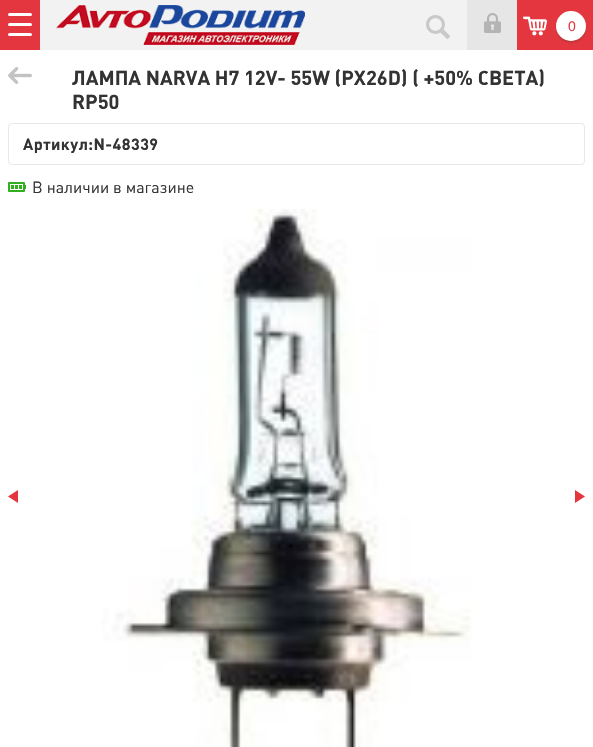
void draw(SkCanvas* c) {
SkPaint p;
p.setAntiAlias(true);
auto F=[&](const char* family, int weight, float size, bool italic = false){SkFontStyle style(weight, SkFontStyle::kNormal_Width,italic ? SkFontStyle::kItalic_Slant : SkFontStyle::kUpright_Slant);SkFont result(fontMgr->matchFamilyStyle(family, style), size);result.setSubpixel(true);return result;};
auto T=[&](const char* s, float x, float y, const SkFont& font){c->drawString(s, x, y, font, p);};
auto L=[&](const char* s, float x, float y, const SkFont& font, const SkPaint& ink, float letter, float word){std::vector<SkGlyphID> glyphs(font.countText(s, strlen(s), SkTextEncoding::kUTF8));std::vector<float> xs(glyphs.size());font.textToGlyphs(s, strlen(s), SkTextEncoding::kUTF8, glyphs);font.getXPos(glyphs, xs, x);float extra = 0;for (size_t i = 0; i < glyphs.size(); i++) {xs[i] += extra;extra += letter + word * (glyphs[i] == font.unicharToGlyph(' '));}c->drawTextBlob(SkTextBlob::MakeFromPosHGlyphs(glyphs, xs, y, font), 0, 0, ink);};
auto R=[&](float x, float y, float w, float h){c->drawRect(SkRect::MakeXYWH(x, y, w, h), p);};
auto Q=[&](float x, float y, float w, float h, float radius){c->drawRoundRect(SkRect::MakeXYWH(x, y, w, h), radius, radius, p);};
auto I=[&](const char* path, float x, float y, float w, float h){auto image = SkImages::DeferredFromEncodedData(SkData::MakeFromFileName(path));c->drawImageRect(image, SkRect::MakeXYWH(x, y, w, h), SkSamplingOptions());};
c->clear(0xffffffff);
p.setColor(0xfff2f2f2);
R(40,0,427,50);
p.setColor(0xffe4363e);
R(0,0,40,50);
p.setColor(0xffffffff);
Q(8,13,24,3,1.5);
Q(8,23,24,3,1.5);
Q(8,33,24,3,1.5);
I("1.png",56,5,249,40);
I("2.png",426,15,24,24);
p.setColor(0xffe6e6e6);
R(467,0,50,50);
I("3.png",484,13,17,20);
p.setColor(0xffe4363e);
R(517,0,76,50);
I("4.png",523,16,24,20);
p.setColor(0x33323232);
p.setMaskFilter(SkMaskFilter::MakeBlur(kNormal_SkBlurStyle, 1));
c->drawRoundRect(SkRect::MakeXYWH(556,13,30,30),15,15,p);
p.setMaskFilter(nullptr);
p.setColor(0xffffffff);
c->drawCircle(571,26,15,p);
auto f1 = F("Liberation Sans",400,14);
p.setColor(0xffe4363e);
T("0",568,31,f1);
I("5.png",8,67,24,17);
auto f2 = F("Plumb",700,20);
p.setColor(0xff333333);
T("ЛАМПА NARVA H7 12V- 55W (PX26D) ( +50% СВЕТА)",72,85,f2);
T("RP50",72,109,f2);
p.setStroke(true);
p.setStrokeWidth(1);
p.setColor(0xffe8e8e8);
c->drawRoundRect(SkRect::MakeXYWH(8.5,123.5,576,41),3.5,3.5,p);
auto f3 = F("Plumb",700,16);
p.setStroke(false);
p.setColor(0xff333333);
L("Артикул:N-48339",23,150,f3,p,.5,0);
I("6.png",8,182,18,10);
auto f4 = F("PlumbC",400,16);
T("В наличии в магазине",32,193,f4);
I("7.png",8,490,10,13);
I("8.png",102,209,370,538);
I("9.png",575,490,10,13);
}
